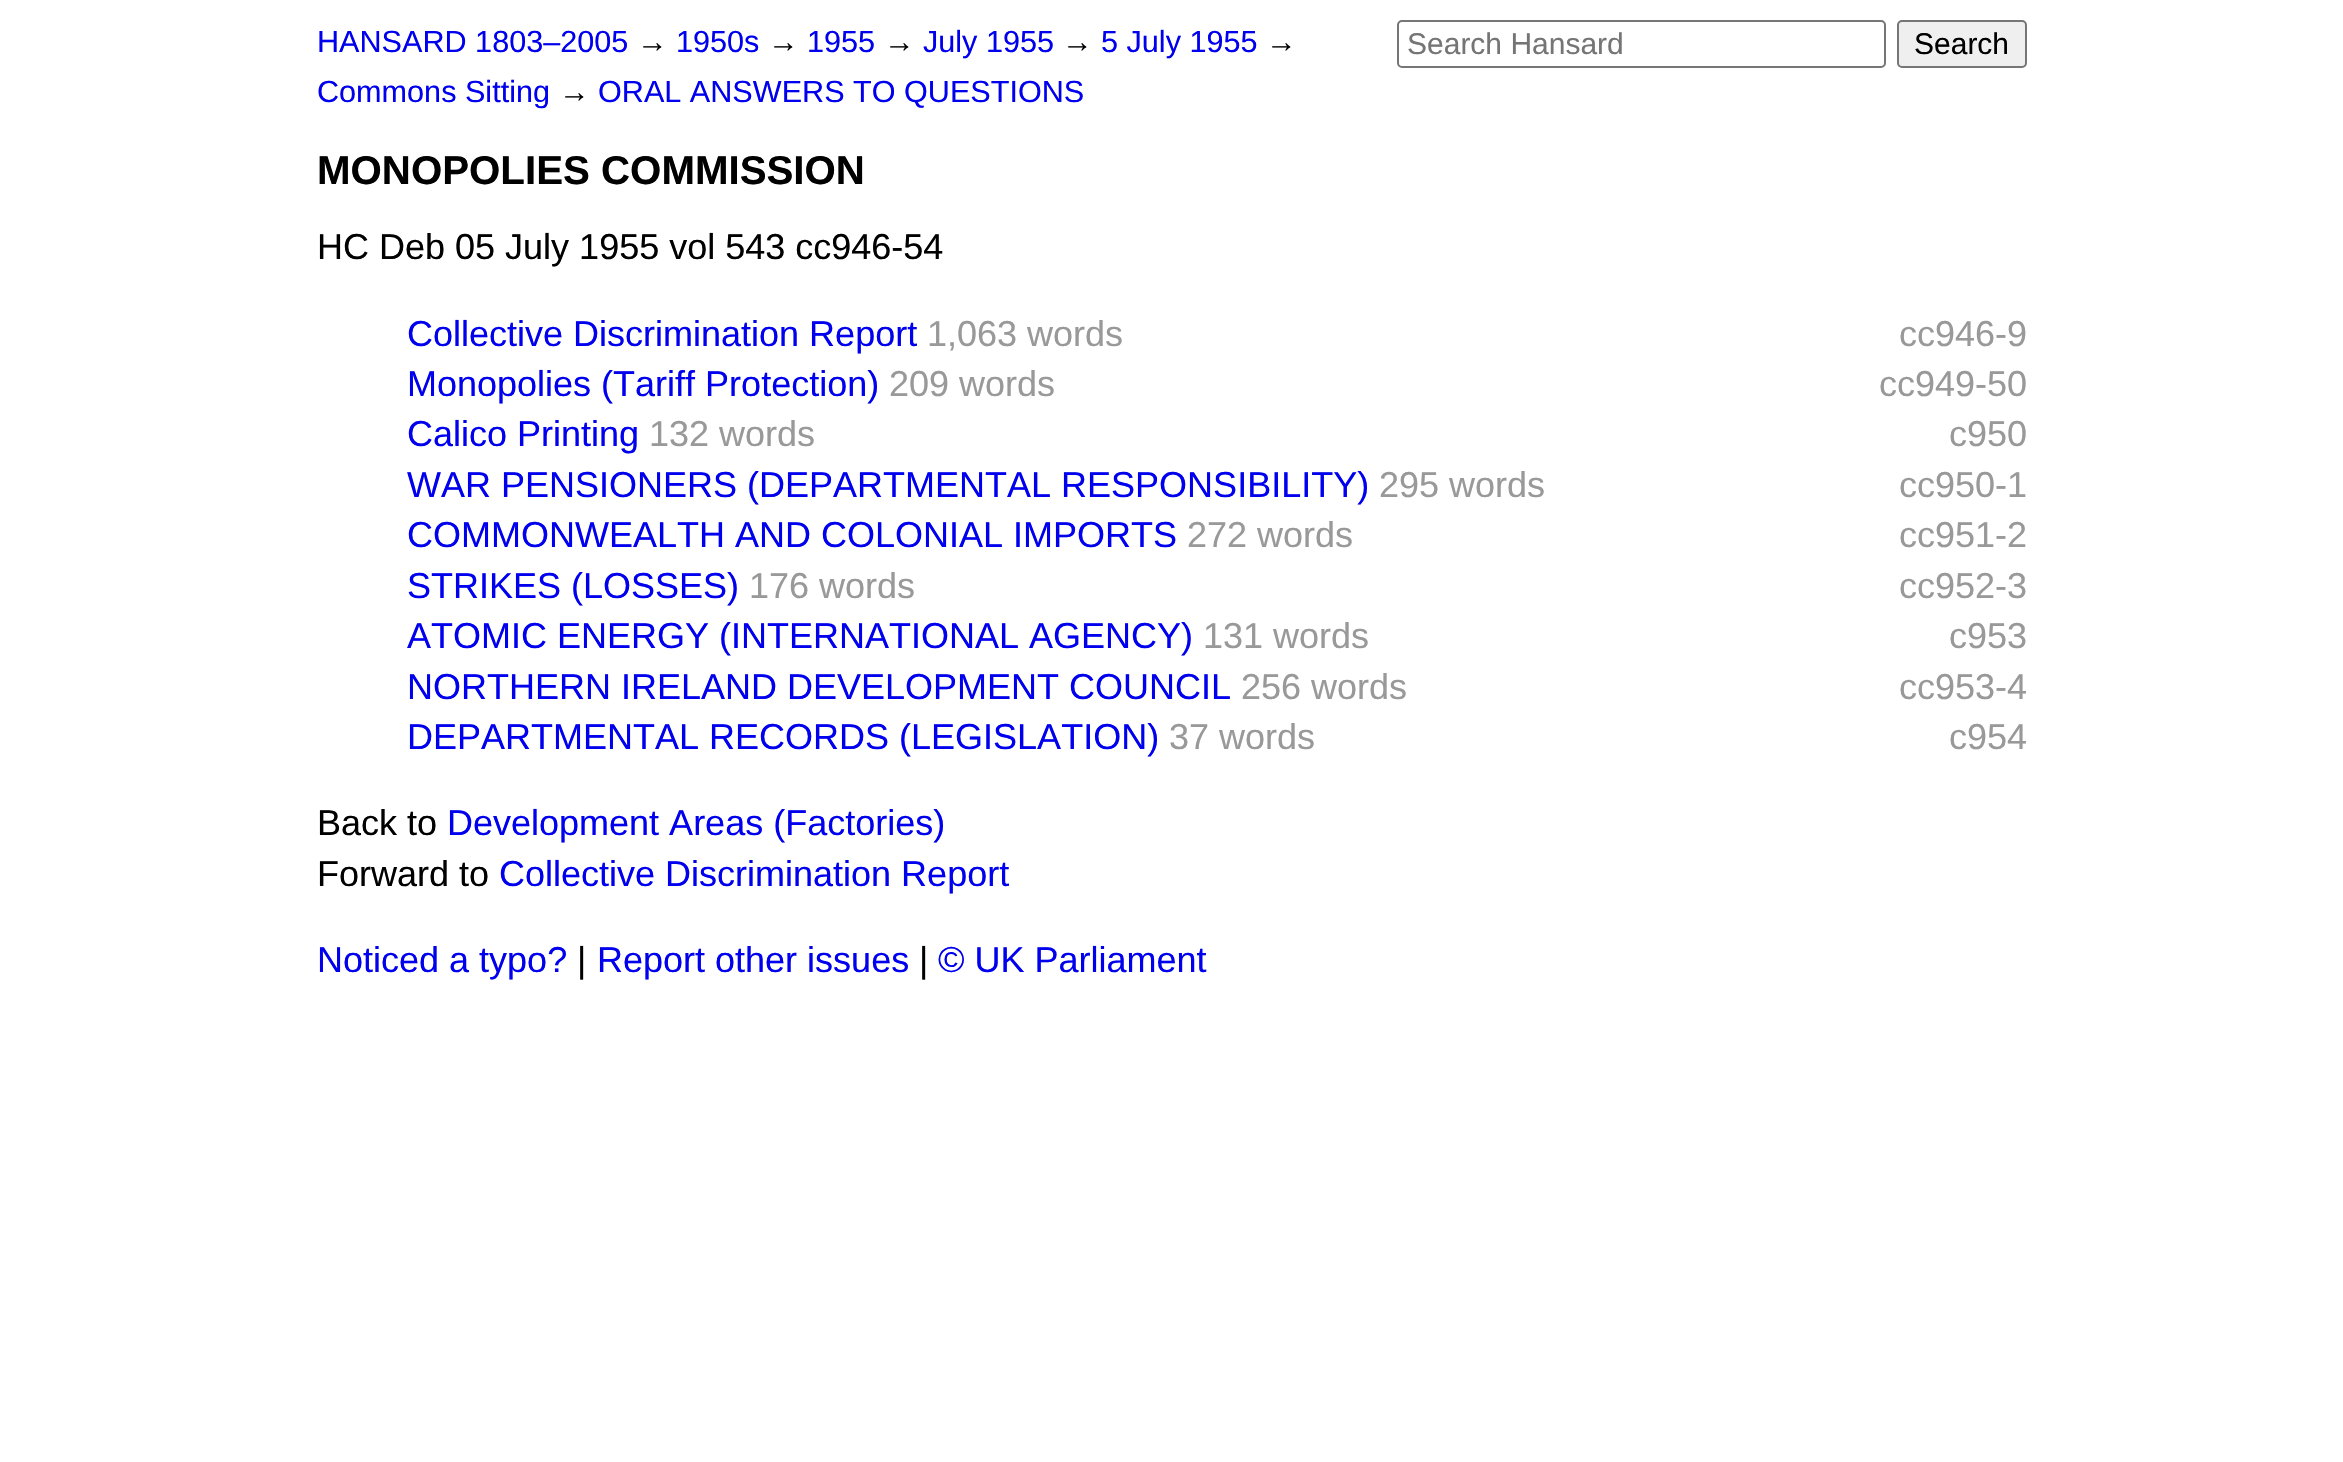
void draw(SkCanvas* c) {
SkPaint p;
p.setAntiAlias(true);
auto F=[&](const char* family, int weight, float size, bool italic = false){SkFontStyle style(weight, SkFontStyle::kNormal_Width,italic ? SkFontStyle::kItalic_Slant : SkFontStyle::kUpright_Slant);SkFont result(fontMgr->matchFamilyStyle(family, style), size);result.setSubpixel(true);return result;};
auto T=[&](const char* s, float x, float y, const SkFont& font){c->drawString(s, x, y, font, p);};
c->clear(0xffffffff);
auto f1 = F("Liberation Sans",400,30.6);
p.setColor(0xff0000ee);
T("HANSARD 1803–2005",317,52,f1);
p.setColor(0xff000000);
T("→",637,52,f1);
p.setColor(0xff0000ee);
T("1950s",676,52,f1);
p.setColor(0xff000000);
T("→",768,52,f1);
p.setColor(0xff0000ee);
T("1955",807,52,f1);
p.setColor(0xff000000);
T("→",884,52,f1);
p.setColor(0xff0000ee);
T("July 1955",923,52,f1);
p.setColor(0xff000000);
T("→",1062,52,f1);
p.setColor(0xff0000ee);
T("5 July 1955",1101,52,f1);
p.setColor(0xff000000);
T("→",1266,52,f1);
p.setColor(0xff0000ee);
T("Commons Sitting",317,102,f1);
p.setColor(0xff000000);
T("→",559,102,f1);
p.setColor(0xff0000ee);
T("ORAL ANSWERS TO QUESTIONS",598,102,f1);
p.setStroke(true);
p.setStrokeWidth(2);
p.setColor(0xff767676);
c->drawRoundRect(SkRect::MakeXYWH(1398,21,487,46),4,4,p);
auto f2 = F("Liberation Sans",400,30);
p.setStroke(false);
p.setColor(0xff757575);
T("Search Hansard",1407,54,f2);
p.setColor(0xffefefef);
c->drawRoundRect(SkRect::MakeXYWH(1898,21,128,46),4,4,p);
p.setStroke(true);
p.setColor(0xff767676);
c->drawRoundRect(SkRect::MakeXYWH(1898,21,128,46),4,4,p);
p.setStroke(false);
p.setColor(0xff000000);
T("Search",1914,54,f2);
auto f3 = F("Liberation Sans",700,40.25);
T("MONOPOLIES COMMISSION",317,184,f3);
auto f4 = F("Liberation Sans",400,36);
T("HC Deb 05 July 1955 vol 543 cc946-54",317,259,f4);
p.setColor(0xff0000ee);
T("Collective Discrimination Report",407,346,f4);
p.setColor(0xff999999);
T("1,063 words",927,346,f4);
T("cc946-9",1899,346,f4);
p.setColor(0xff0000ee);
T("Monopolies (Tariff Protection)",407,396,f4);
p.setColor(0xff999999);
T("209 words",889,396,f4);
T("cc949-50",1879,396,f4);
p.setColor(0xff0000ee);
T("Calico Printing",407,446,f4);
p.setColor(0xff999999);
T("132 words",649,446,f4);
T("c950",1949,446,f4);
p.setColor(0xff0000ee);
T("WAR PENSIONERS (DEPARTMENTAL RESPONSIBILITY)",407,497,f4);
p.setColor(0xff999999);
T("295 words",1379,497,f4);
T("cc950-1",1899,497,f4);
p.setColor(0xff0000ee);
T("COMMONWEALTH AND COLONIAL IMPORTS",407,547,f4);
p.setColor(0xff999999);
T("272 words",1187,547,f4);
T("cc951-2",1899,547,f4);
p.setColor(0xff0000ee);
T("STRIKES (LOSSES)",407,598,f4);
p.setColor(0xff999999);
T("176 words",749,598,f4);
T("cc952-3",1899,598,f4);
p.setColor(0xff0000ee);
T("ATOMIC ENERGY (INTERNATIONAL AGENCY)",407,648,f4);
p.setColor(0xff999999);
T("131 words",1203,648,f4);
T("c953",1949,648,f4);
p.setColor(0xff0000ee);
T("NORTHERN IRELAND DEVELOPMENT COUNCIL",407,699,f4);
p.setColor(0xff999999);
T("256 words",1241,699,f4);
T("cc953-4",1899,699,f4);
p.setColor(0xff0000ee);
T("DEPARTMENTAL RECORDS (LEGISLATION)",407,749,f4);
p.setColor(0xff999999);
T("37 words",1169,749,f4);
T("c954",1949,749,f4);
p.setColor(0xff000000);
T("Back to",317,835,f4);
p.setColor(0xff0000ee);
T("Development Areas (Factories)",447,835,f4);
p.setColor(0xff000000);
T("Forward to",317,886,f4);
p.setColor(0xff0000ee);
T("Collective Discrimination Report",499,886,f4);
T("Noticed a typo?",317,972,f4);
p.setColor(0xff000000);
T("|",577,972,f4);
p.setColor(0xff0000ee);
T("Report other issues",597,972,f4);
p.setColor(0xff000000);
T("|",919,972,f4);
p.setColor(0xff0000ee);
T("© UK Parliament",938,972,f4);
}
